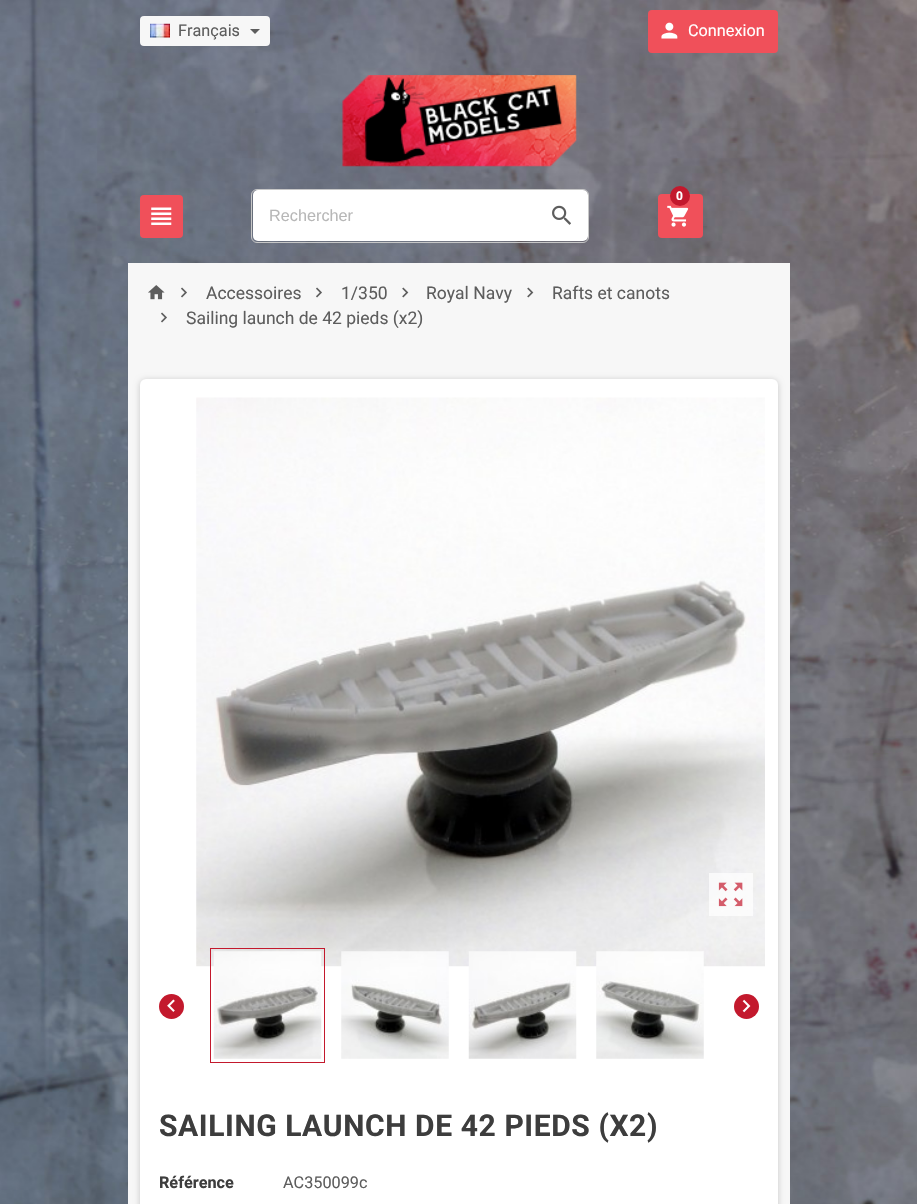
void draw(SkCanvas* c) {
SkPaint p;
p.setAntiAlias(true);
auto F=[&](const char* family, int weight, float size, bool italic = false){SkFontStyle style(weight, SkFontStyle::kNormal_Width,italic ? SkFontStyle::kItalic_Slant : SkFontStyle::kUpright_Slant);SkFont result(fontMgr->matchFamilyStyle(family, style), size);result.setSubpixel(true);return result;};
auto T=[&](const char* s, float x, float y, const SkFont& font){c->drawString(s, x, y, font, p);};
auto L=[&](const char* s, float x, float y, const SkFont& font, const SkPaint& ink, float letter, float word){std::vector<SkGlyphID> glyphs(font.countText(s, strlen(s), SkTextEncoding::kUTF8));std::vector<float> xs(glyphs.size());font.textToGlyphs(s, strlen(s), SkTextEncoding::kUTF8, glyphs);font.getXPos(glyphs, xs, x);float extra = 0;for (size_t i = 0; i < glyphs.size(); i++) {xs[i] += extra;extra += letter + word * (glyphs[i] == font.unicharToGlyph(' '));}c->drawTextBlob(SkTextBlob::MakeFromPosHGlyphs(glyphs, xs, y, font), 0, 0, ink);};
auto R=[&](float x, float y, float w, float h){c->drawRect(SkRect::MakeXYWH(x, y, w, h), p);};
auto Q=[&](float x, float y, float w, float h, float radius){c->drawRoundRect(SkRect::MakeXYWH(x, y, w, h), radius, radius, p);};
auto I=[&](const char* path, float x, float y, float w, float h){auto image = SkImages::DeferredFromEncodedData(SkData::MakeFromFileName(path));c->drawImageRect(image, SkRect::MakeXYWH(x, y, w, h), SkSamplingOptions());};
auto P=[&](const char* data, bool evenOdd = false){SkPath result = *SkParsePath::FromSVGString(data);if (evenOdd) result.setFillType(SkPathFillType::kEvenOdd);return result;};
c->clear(0xffffffff);
I("1.png",0,0,917,1204);
p.setColor(0xfff7f7f7);
Q(140,16,130,30,4);
I("2.png",150,23,20,15);
auto f1 = F("Roboto",400,16.25);
p.setColor(0xff5d5d5d);
T("Français",178,36,f1);
c->drawPath(P("M250 29h10l-5 5z"),p);
p.setColor(0xfff0505a);
Q(648,10,130,43,4);
I("3.png",661,22,17,17);
p.setColor(0xffffffff);
T("Connexion",688,36,f1);
I("4.png",342,75,235,92);
p.setColor(0xfff0505a);
Q(140,195,43,43,4);
I("5.png",151,207,21,18);
p.setColor(0xffffffff);
Q(253,190,335,51,5);
p.setStroke(true);
p.setStrokeWidth(1);
p.setColor(0xffc7c7c7);
c->drawRoundRect(SkRect::MakeXYWH(251.5,189.5,337,53),5.5,5.5,p);
auto f2 = F("Liberation Sans",400,16.25);
p.setStroke(false);
p.setColor(0xffb7b7b7);
T("Rechercher",269,221,f2);
I("6.png",552,205,19,20);
p.setColor(0xfff0505a);
Q(658,194,45,44,4);
I("7.png",667,205,22,22);
p.setColor(0xffc3192d);
c->drawCircle(680,196,10,p);
auto f3 = F("Roboto",700,12);
p.setColor(0xffffffff);
T("0",676,200,f3);
p.setColor(0xfff7f7f7);
R(128,263,662,941);
I("8.png",148,285,17,15);
I("9.png",181,287,6,11);
auto f4 = F("Roboto",400,17.5);
p.setColor(0xff5d5d5d);
T("Accessoires",206,299,f4);
I("9.png",316,287,6,11);
T("1/350",341,299,f4);
I("10.png",402,287,7,11);
T("Royal Navy",426,299,f4);
I("10.png",527,287,7,11);
T("Rafts et canots",552,299,f4);
I("9.png",161,312,6,11);
T("Sailing launch de 42 pieds (x2)",186,324,f4);
p.setColor(0x33000000);
p.setMaskFilter(SkMaskFilter::MakeBlur(kNormal_SkBlurStyle, 3));
c->drawRoundRect(SkRect::MakeXYWH(140,380,638,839),6,6,p);
p.setMaskFilter(nullptr);
p.setColor(0xffffffff);
Q(140,379,638,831,6);
I("11.png",196,397,569,570);
p.setColor(0xb3ffffff);
R(709,873,44,43);
I("12.png",718,882,25,25);
p.setStroke(true);
p.setColor(0xffc3192d);
c->drawRect(SkRect::MakeXYWH(210.5,948.5,114,114),p);
I("13.png",213,951,109,108);
I("14.png",341,951,108,108);
I("15.png",468,951,109,108);
I("16.png",596,951,108,108);
p.setStroke(false);
c->drawCircle(171.5,1006.5,12.5,p);
I("17.png",167,999,8,13);
c->drawCircle(746.5,1006.5,12.5,p);
I("18.png",742,999,9,14);
auto f5 = F("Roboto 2",700,30);
p.setColor(0xff3d3d3d);
L("SAILING LAUNCH DE 42 PIEDS (X2)",159,1136,f5,p,.6,0);
auto f6 = F("Roboto",700,16.25);
T("Référence",159,1188,f6);
p.setColor(0xff5d5d5d);
T("AC350099c",283,1188,f1);
}
